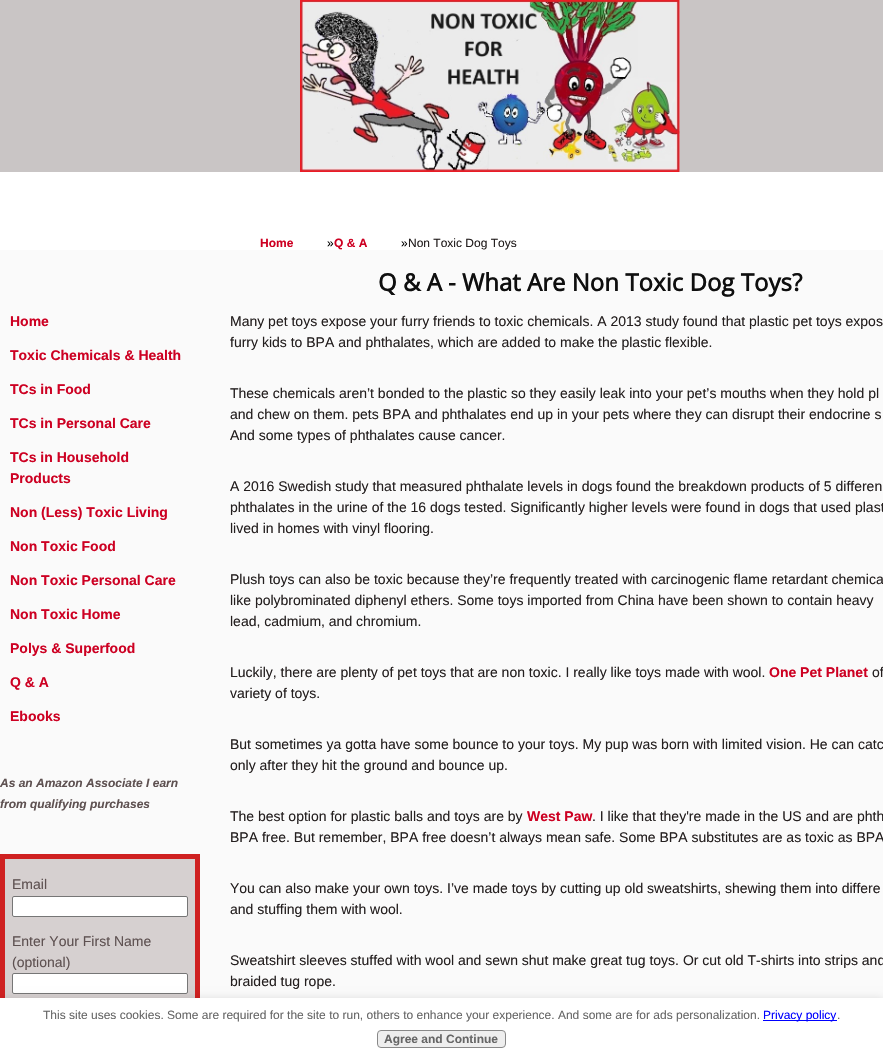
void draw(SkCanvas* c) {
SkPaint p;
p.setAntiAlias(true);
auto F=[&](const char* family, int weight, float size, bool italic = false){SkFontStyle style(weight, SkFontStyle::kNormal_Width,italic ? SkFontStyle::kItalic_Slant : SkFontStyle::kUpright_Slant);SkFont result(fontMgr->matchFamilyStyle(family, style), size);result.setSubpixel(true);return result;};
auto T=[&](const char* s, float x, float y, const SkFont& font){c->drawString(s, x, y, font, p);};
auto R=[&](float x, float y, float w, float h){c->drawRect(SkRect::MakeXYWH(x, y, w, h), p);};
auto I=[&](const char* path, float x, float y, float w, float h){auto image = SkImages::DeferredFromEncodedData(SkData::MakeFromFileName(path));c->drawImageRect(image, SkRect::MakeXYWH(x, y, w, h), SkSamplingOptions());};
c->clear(0xfffafafa);
p.setColor(0xffffffff);
R(0,172,883,78);
p.setColor(0xffc9c5c5);
R(0,0,883,172);
I("1.png",300,0,380,172);
auto f1 = F("Liberation Sans",700,14);
p.setColor(0xffcd0022);
T("Home",10,326,f1);
T("Toxic Chemicals & Health",10,360,f1);
T("TCs in Food",10,394,f1);
T("TCs in Personal Care",10,428,f1);
T("TCs in Household",10,462,f1);
T("Products",10,483,f1);
T("Non (Less) Toxic Living",10,517,f1);
T("Non Toxic Food",10,551,f1);
T("Non Toxic Personal Care",10,585,f1);
T("Non Toxic Home",10,619,f1);
T("Polys & Superfood",10,653,f1);
T("Q & A",10,687,f1);
T("Ebooks",10,721,f1);
auto f2 = F("Liberation Sans",700,12,true);
p.setColor(0xff5e5151);
T("As an Amazon Associate I earn",0,787,f2);
T("from qualifying purchases",0,808,f2);
p.setColor(0xffd6d0d0);
R(5,859,190,139);
p.setStroke(true);
p.setStrokeWidth(5);
p.setColor(0xffcf2121);
c->drawRect(SkRect::MakeXYWH(2.5,856.5,195,190),p);
auto f3 = F("Liberation Sans",400,14);
p.setStroke(false);
p.setColor(0xff5e5151);
T("Email",12,889,f3);
p.setColor(0xffffffff);
c->drawRoundRect(SkRect::MakeXYWH(12.5,896.5,175,20),1.5,1.5,p);
p.setStroke(true);
p.setStrokeWidth(1);
p.setColor(0xff767676);
c->drawRoundRect(SkRect::MakeXYWH(12.5,896.5,175,20),1.5,1.5,p);
p.setStroke(false);
p.setColor(0xff5e5151);
T("Enter Your First Name",12,946,f3);
T("(optional)",12,967,f3);
p.setColor(0xffffffff);
c->drawRoundRect(SkRect::MakeXYWH(12.5,973.5,175,20),1.5,1.5,p);
p.setStroke(true);
p.setColor(0xff767676);
c->drawRoundRect(SkRect::MakeXYWH(12.5,973.5,175,20),1.5,1.5,p);
auto f4 = F("Liberation Sans",700,12);
p.setStroke(false);
p.setColor(0xffcd0022);
T("Home",260,247,f4);
auto f5 = F("Liberation Sans",400,12);
p.setColor(0xff000000);
T("»",327,247,f5);
p.setColor(0xffcd0022);
T("Q & A",334,247,f4);
p.setColor(0xff000000);
T("»",401,247,f5);
p.setColor(0xff241f1f);
T("Non Toxic Dog Toys",408,247,f5);
auto f6 = F("Open Sans",700,24);
p.setColor(0xff0f0f0f);
T("Q & A - What Are Non Toxic Dog Toys?",378,291,f6);
p.setColor(0xff241f1f);
T("Many pet toys expose your furry friends to toxic chemicals. A 2013 study found that plastic pet toys expos",230,326,f3);
T("furry kids to BPA and phthalates, which are added to make the plastic flexible.",230,347,f3);
T("These chemicals aren’t bonded to the plastic so they easily leak into your pet’s mouths when they hold pl",230,398,f3);
T("and chew on them. pets BPA and phthalates end up in your pets where they can disrupt their endocrine s",230,419,f3);
T("And some types of phthalates cause cancer.",230,440,f3);
T("A 2016 Swedish study that measured phthalate levels in dogs found the breakdown products of 5 differen",230,491,f3);
T("phthalates in the urine of the 16 dogs tested. Significantly higher levels were found in dogs that used plast",230,512,f3);
T("lived in homes with vinyl flooring.",230,533,f3);
T("Plush toys can also be toxic because they’re frequently treated with carcinogenic flame retardant chemica",230,584,f3);
T("like polybrominated diphenyl ethers. Some toys imported from China have been shown to contain heavy",230,605,f3);
T("lead, cadmium, and chromium.",230,626,f3);
T("Luckily, there are plenty of pet toys that are non toxic. I really like toys made with wool.",230,677,f3);
p.setColor(0xffcd0022);
T("One Pet Planet",769,677,f1);
p.setColor(0xff241f1f);
T("of",872,677,f3);
T("variety of toys.",230,698,f3);
T("But sometimes ya gotta have some bounce to your toys. My pup was born with limited vision. He can catc",230,749,f3);
T("only after they hit the ground and bounce up.",230,770,f3);
T("The best option for plastic balls and toys are by",230,821,f3);
p.setColor(0xffcd0022);
T("West Paw",527,821,f1);
p.setColor(0xff241f1f);
T(". I like that they're made in the US and are phth",592,821,f3);
T("BPA free. But remember, BPA free doesn’t always mean safe. Some BPA substitutes are as toxic as BPA",230,842,f3);
T("You can also make your own toys. I’ve made toys by cutting up old sweatshirts, shewing them into differe",230,893,f3);
T("and stuffing them with wool.",230,914,f3);
T("Sweatshirt sleeves stuffed with wool and sewn shut make great tug toys. Or cut old T-shirts into strips and",230,965,f3);
T("braided tug rope.",230,986,f3);
p.setColor(0x33000000);
p.setMaskFilter(SkMaskFilter::MakeBlur(kNormal_SkBlurStyle, 5));
c->drawRect(SkRect::MakeXYWH(-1,1001,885,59),p);
p.setMaskFilter(nullptr);
p.setColor(0xffffffff);
R(0,998,883,57);
p.setColor(0xff666666);
T("This site uses cookies. Some are required for the site to run, others to enhance your experience. And some are for ads personalization.",43,1019,f5);
p.setColor(0xff0000ff);
R(763,1020,74,1);
T("Privacy policy",763,1019,f5);
p.setColor(0xff666666);
T(".",837,1019,f5);
p.setColor(0xffeeeeee);
c->drawRoundRect(SkRect::MakeXYWH(377.5,1030.5,128,17),3.5,3.5,p);
p.setStroke(true);
p.setColor(0xff888888);
c->drawRoundRect(SkRect::MakeXYWH(377.5,1030.5,128,17),3.5,3.5,p);
p.setStroke(false);
p.setColor(0xff666666);
T("Agree and Continue",384,1043,f4);
}
